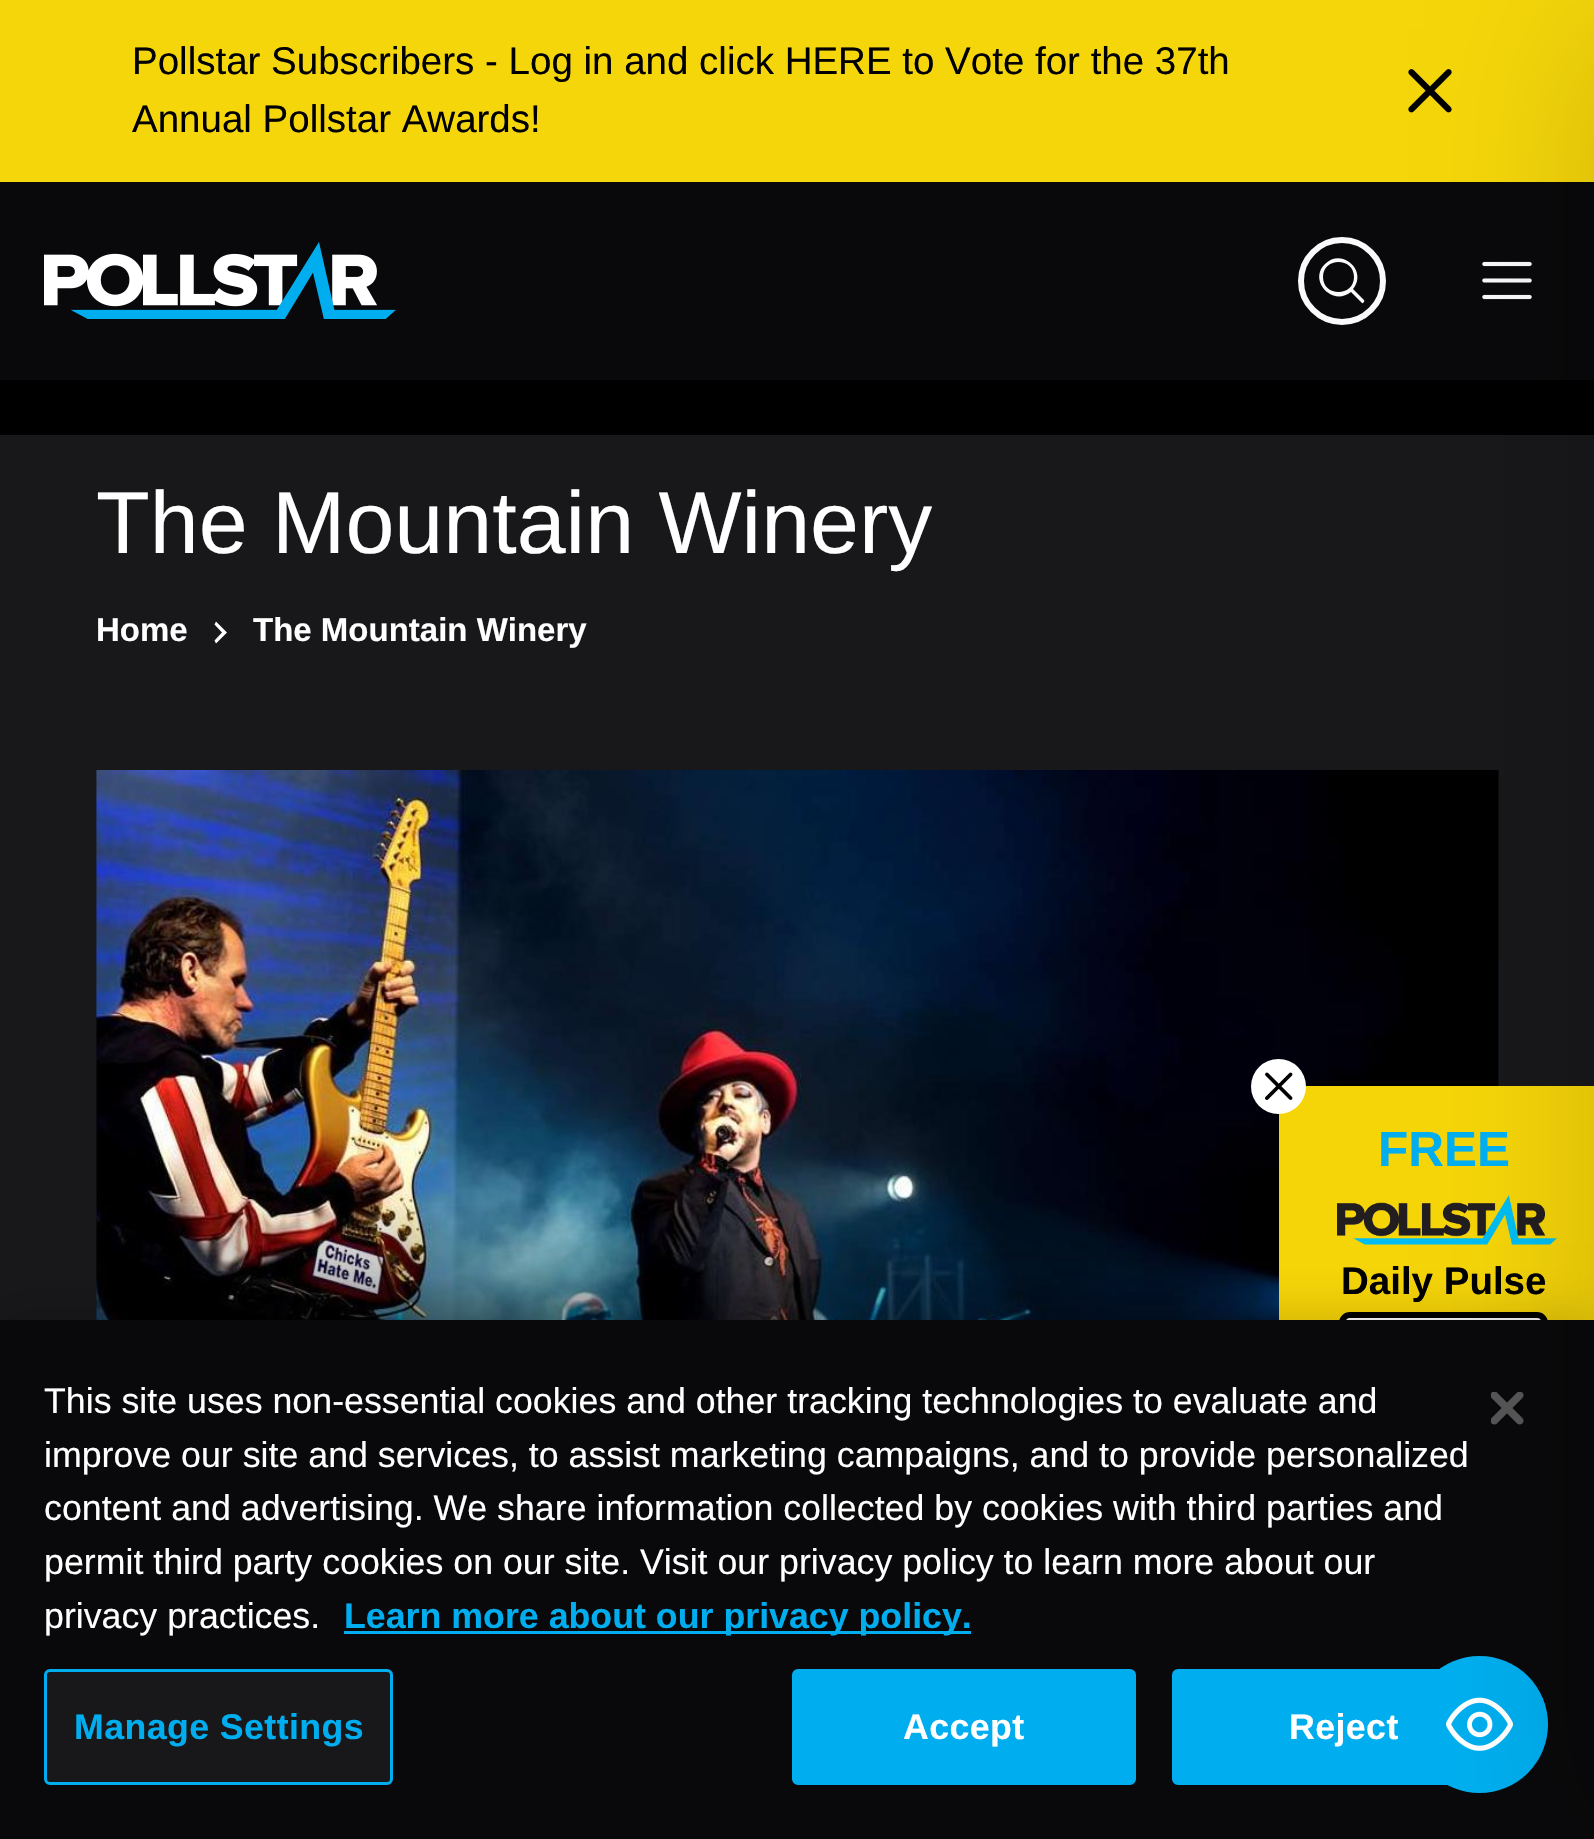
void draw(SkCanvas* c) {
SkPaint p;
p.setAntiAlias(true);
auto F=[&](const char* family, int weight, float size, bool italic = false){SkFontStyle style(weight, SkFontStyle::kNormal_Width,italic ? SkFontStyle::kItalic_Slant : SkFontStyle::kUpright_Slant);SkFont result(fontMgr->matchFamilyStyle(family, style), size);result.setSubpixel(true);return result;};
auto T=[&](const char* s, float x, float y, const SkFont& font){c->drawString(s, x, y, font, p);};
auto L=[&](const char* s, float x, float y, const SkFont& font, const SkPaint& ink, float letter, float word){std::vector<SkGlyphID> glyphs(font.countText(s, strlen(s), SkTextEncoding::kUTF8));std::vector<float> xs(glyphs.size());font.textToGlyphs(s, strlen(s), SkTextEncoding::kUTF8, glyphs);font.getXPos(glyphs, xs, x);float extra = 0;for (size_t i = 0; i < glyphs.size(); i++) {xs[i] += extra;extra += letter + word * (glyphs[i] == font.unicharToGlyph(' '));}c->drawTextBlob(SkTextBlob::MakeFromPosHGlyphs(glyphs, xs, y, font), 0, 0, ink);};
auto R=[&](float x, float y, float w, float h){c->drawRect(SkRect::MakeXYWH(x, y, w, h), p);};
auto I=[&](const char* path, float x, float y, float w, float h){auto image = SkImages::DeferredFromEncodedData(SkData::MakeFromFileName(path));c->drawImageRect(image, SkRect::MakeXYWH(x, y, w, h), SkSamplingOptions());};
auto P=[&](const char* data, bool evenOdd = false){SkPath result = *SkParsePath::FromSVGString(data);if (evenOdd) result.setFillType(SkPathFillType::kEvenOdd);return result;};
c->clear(0xff18181b);
p.setColor(0xff000000);
R(0,380,1594,55);
p.setColor(0xfff5d60a);
R(0,0,1594,182);
I("1.png",1408,69,44,44);
p.setColor(0xff09090b);
R(0,182,1594,198);
p.setStroke(true);
p.setStrokeWidth(6);
p.setColor(0xfffafafa);
c->drawCircle(1342,281,41,p);
p.setStroke(false);
c->drawPath(P("M1364 300l-11-11c15-18-11-42-28-25c-17 16 7 43 26 28l11 11c1 1 3-2 2-3zm-41-23c0-20 31-20 31 0c0 20-31 20-31 0z"),p);
I("3.png",1482,261,50,39);
c->save();
c->clipRect(SkRect::MakeXYWH(96,957,1403,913));
p.setColor(0xff13242e);
c->drawPath(P("M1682 1754l-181-797l-495 797h-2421l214 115h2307l336-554l115 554h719l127-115z"),p);
c->restore();
I("4.png",96,770,1403,550);
p.setColor(0xfff6d508);
R(1279,1086,315,234);
I("6.png",1337,1195,220,50);
p.setColor(0xffffffff);
c->drawRoundRect(SkRect::MakeXYWH(1342,1315,203,52),8,8,p);
p.setStroke(true);
p.setColor(0xff000000);
c->drawRoundRect(SkRect::MakeXYWH(1342,1315,203,52),8,8,p);
p.setStroke(false);
{
const SkColor colors[] = {0xd9000000,0x00000000};
const float stops[] = {.35,.61};
const SkPoint ends[] = {{798,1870}, {798,770}};
p.setShader(SkGradientShader::MakeLinear(ends, colors, stops, 2, SkTileMode::kClamp));
p.setAlpha(255);
}
R(96,1206,1183,114);
p.setShader(nullptr);
p.setColor(0x33000000);
p.setMaskFilter(SkMaskFilter::MakeBlur(kNormal_SkBlurStyle, 25));
c->drawRect(SkRect::MakeXYWH(0,1320,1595,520),p);
p.setMaskFilter(nullptr);
p.setColor(0xff09090b);
R(0,1320,1594,519);
p.setColor(0xff00aeef);
c->drawRoundRect(SkRect::MakeXYWH(1173.5,1670.5,340,113),4.5,4.5,p);
p.setStroke(true);
p.setStrokeWidth(3);
c->drawRoundRect(SkRect::MakeXYWH(1173.5,1670.5,340,113),4.5,4.5,p);
I("7.png",1491,1392,33,33);
p.setStroke(false);
c->drawCircle(1479.5,1724.5,68.5,p);
I("8.png",1446,1697,67,54);
p.setColor(0x33000000);
p.setMaskFilter(SkMaskFilter::MakeBlur(kNormal_SkBlurStyle, 82.5));
c->drawRect(SkRect::MakeXYWH(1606,28,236,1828),p);
p.setMaskFilter(nullptr);
auto f1 = F("Liberation Sans",400,38.5);
p.setColor(0xff000000);
T("Pollstar Subscribers - Log in and click HERE to Vote for the 37th",132,74,f1);
T("Annual Pollstar Awards!",132,132,f1);
I("2.png",44,242,352,77);
auto f2 = F("Liberation Sans",400,88);
p.setColor(0xffffffff);
T("The Mountain Winery",96,553,f2);
auto f3 = F("Liberation Sans",700,33);
T("Home",96,641,f3);
c->drawPath(P("M214.5 640.5l7.5-8l-7.5-8l1.5-3l11 11l-11 11z"),p);
T("The Mountain Winery",253,641,f3);
c->drawCircle(1278.5,1086.5,27.5,p);
I("5.png",1265,1072,28,28);
auto f4 = F("Liberation Sans",700,49.5);
p.setColor(0xff00aeef);
T("FREE",1378,1166,f4);
auto f5 = F("Liberation Sans",700,38.5);
p.setColor(0xff000000);
T("Daily Pulse",1341,1294,f5);
auto f6 = F("Liberation Sans",400,35.75);
p.setColor(0xffffffff);
T("This site uses non-essential cookies and other tracking technologies to evaluate and",44,1413,f6);
T("improve our site and services, to assist marketing campaigns, and to provide personalized",44,1467,f6);
T("content and advertising. We share information collected by cookies with third parties and",44,1520,f6);
T("permit third party cookies on our site.",44,1574,f6);
T("Visit our privacy policy to learn more about our",640,1574,f6);
T("privacy practices.",44,1628,f6);
p.setColor(0xff00aeef);
R(344,1631,627,3);
auto f7 = F("Liberation Sans",700,35.75);
T("Learn more about our privacy policy.",344,1628,f7);
p.setColor(0xff18181b);
c->drawRoundRect(SkRect::MakeXYWH(45.5,1670.5,346,113),4.5,4.5,p);
p.setStroke(true);
p.setColor(0xff00aeef);
c->drawRoundRect(SkRect::MakeXYWH(45.5,1670.5,346,113),4.5,4.5,p);
p.setStroke(false);
L("Manage Settings",74,1739,f7,p,.4,0);
c->drawRoundRect(SkRect::MakeXYWH(793.5,1670.5,341,113),4.5,4.5,p);
p.setStroke(true);
c->drawRoundRect(SkRect::MakeXYWH(793.5,1670.5,341,113),4.5,4.5,p);
p.setStroke(false);
p.setColor(0xffffffff);
L("Accept",903,1739,f7,p,.4,0);
L("Reject",1289,1739,f7,p,.4,0);
}
